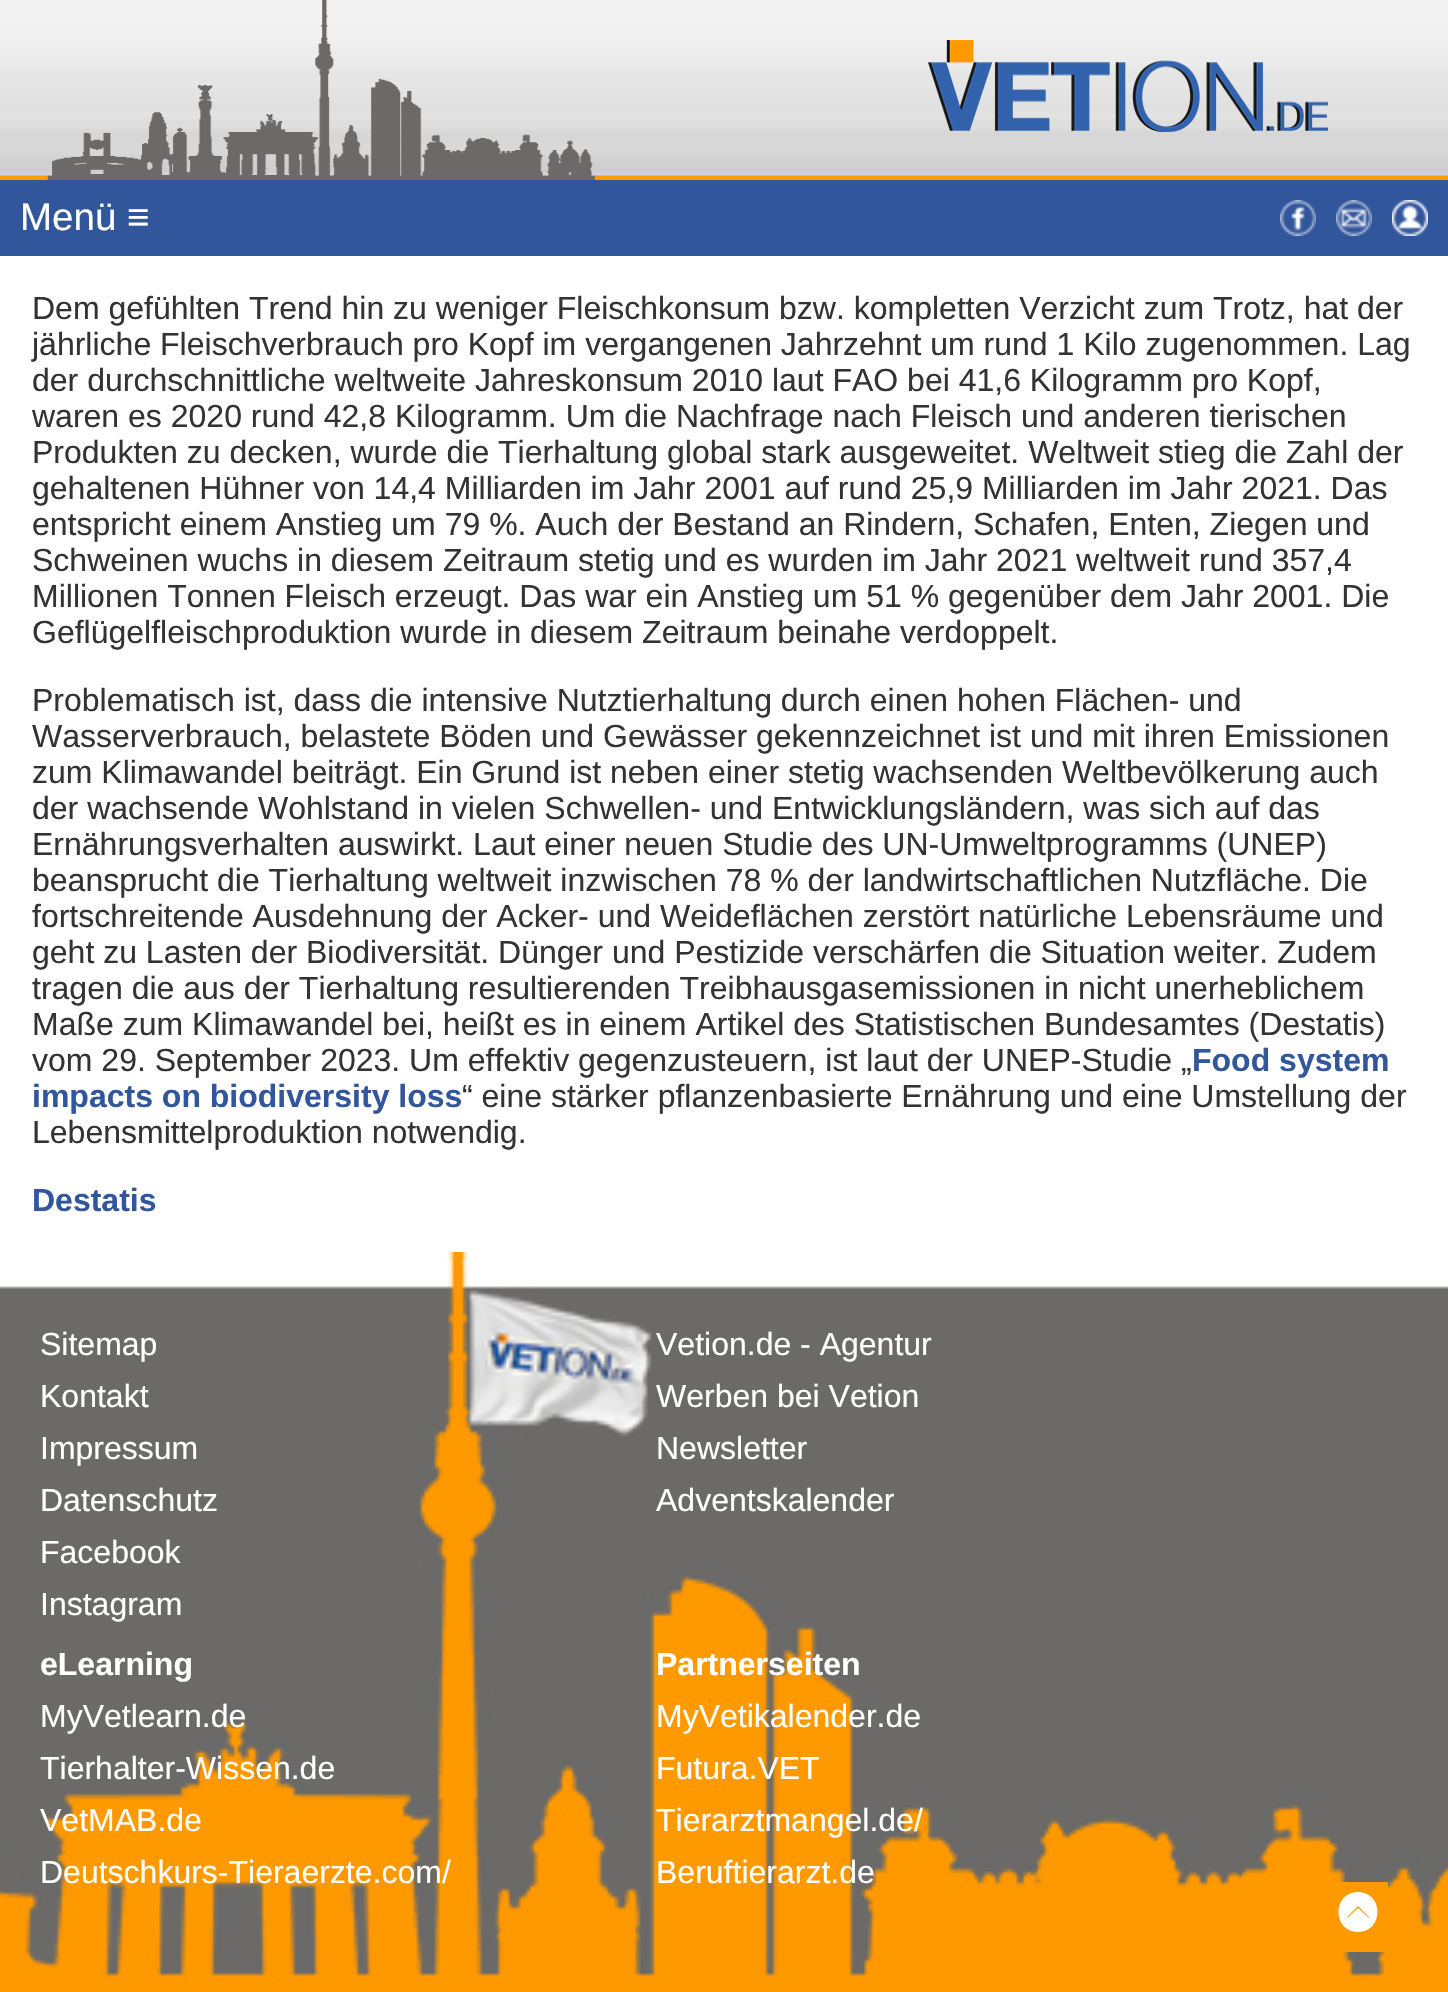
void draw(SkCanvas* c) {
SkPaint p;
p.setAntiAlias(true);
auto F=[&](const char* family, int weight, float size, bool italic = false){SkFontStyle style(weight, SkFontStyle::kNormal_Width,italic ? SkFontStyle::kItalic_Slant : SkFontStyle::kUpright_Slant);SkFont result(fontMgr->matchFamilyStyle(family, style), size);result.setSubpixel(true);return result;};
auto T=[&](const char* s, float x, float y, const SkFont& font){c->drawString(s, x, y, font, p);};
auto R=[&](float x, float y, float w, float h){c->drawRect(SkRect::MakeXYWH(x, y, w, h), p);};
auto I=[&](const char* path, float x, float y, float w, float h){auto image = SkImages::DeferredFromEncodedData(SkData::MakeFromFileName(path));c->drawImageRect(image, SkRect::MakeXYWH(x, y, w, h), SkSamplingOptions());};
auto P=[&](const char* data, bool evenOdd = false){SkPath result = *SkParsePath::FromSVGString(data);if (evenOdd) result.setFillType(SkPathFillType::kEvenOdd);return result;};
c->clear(0xffffffff);
I("1.png",0,0,1448,180);
I("2.png",47,0,549,180);
I("3.png",928,40,400,92);
p.setColor(0xff31569c);
R(0,180,1448,76);
auto f1 = F("Liberation Sans",400,38.5);
p.setColor(0xffffffff);
T("Menü ≡",20,230,f1);
I("4.png",1280,200,36,36);
I("5.png",1336,200,36,36);
I("6.png",1392,200,36,36);
auto f2 = F("Liberation Sans",400,32);
p.setColor(0xff333333);
T("Dem gefühlten Trend hin zu weniger Fleischkonsum bzw. kompletten Verzicht zum Trotz, hat der",32,319,f2);
T("jährliche Fleischverbrauch pro Kopf im vergangenen Jahrzehnt um rund 1 Kilo zugenommen. Lag",32,355,f2);
T("der durchschnittliche weltweite Jahreskonsum 2010 laut FAO bei 41,6 Kilogramm pro Kopf,",32,391,f2);
T("waren es 2020 rund 42,8 Kilogramm. Um die Nachfrage nach Fleisch und anderen tierischen",32,427,f2);
T("Produkten zu decken, wurde die Tierhaltung global stark ausgeweitet. Weltweit stieg die Zahl der",32,463,f2);
T("gehaltenen Hühner von 14,4 Milliarden im Jahr 2001 auf rund 25,9 Milliarden im Jahr 2021. Das",32,499,f2);
T("entspricht einem Anstieg um 79 %. Auch der Bestand an Rindern, Schafen, Enten, Ziegen und",32,535,f2);
T("Schweinen wuchs in diesem Zeitraum stetig und es wurden im Jahr 2021 weltweit rund 357,4",32,571,f2);
T("Millionen Tonnen Fleisch erzeugt. Das war ein Anstieg um 51 % gegenüber dem Jahr 2001. Die",32,607,f2);
T("Geflügelfleischproduktion wurde in diesem Zeitraum beinahe verdoppelt.",32,643,f2);
T("Problematisch ist, dass die intensive Nutztierhaltung durch einen hohen Flächen- und",32,711,f2);
T("Wasserverbrauch, belastete Böden und Gewässer gekennzeichnet ist und mit ihren Emissionen",32,747,f2);
T("zum Klimawandel beiträgt. Ein Grund ist neben einer stetig wachsenden Weltbevölkerung auch",32,783,f2);
T("der wachsende Wohlstand in vielen Schwellen- und Entwicklungsländern, was sich auf das",32,819,f2);
T("Ernährungsverhalten auswirkt. Laut einer neuen Studie des UN-Umweltprogramms (UNEP)",32,855,f2);
T("beansprucht die Tierhaltung weltweit inzwischen 78 % der landwirtschaftlichen Nutzfläche. Die",32,891,f2);
T("fortschreitende Ausdehnung der Acker- und Weideflächen zerstört natürliche Lebensräume und",32,927,f2);
T("geht zu Lasten der Biodiversität. Dünger und Pestizide verschärfen die Situation weiter. Zudem",32,963,f2);
T("tragen die aus der Tierhaltung resultierenden Treibhausgasemissionen in nicht unerheblichem",32,999,f2);
T("Maße zum Klimawandel bei, heißt es in einem Artikel des Statistischen Bundesamtes (Destatis)",32,1035,f2);
T("vom 29. September 2023. Um effektiv gegenzusteuern, ist laut der UNEP-Studie „",32,1071,f2);
auto f3 = F("Liberation Sans",700,32);
p.setColor(0xff31569c);
T("Food system",1192,1071,f3);
T("impacts on biodiversity loss",32,1107,f3);
p.setColor(0xff333333);
T("“ eine stärker pflanzenbasierte Ernährung und eine Umstellung der",462,1107,f2);
T("Lebensmittelproduktion notwendig.",32,1143,f2);
p.setColor(0xff31569c);
T("Destatis",32,1211,f3);
I("7.png",0,1252,1448,740);
p.setColor(0xffffffff);
T("Sitemap",40,1355,f2);
T("Kontakt",40,1407,f2);
T("Impressum",40,1459,f2);
T("Datenschutz",40,1511,f2);
T("Facebook",40,1563,f2);
T("Instagram",40,1615,f2);
T("Vetion.de - Agentur",656,1355,f2);
T("Werben bei Vetion",656,1407,f2);
T("Newsletter",656,1459,f2);
T("Adventskalender",656,1511,f2);
T("eLearning",40,1675,f3);
T("MyVetlearn.de",40,1727,f2);
T("Tierhalter-Wissen.de",40,1779,f2);
T("VetMAB.de",40,1831,f2);
T("Deutschkurs-Tieraerzte.com/",40,1883,f2);
T("Partnerseiten",656,1675,f3);
T("MyVetikalender.de",656,1727,f2);
T("Futura.VET",656,1779,f2);
T("Tierarztmangel.de/",656,1831,f2);
T("Beruftierarzt.de",656,1883,f2);
p.setColor(0xffff9900);
R(1339,1882,49,70);
p.setColor(0xffffffff);
c->drawPath(P("M1358 1932c26 0 26-40 0-40c-26 0-26 40 0 40zm-11-14v-1l11-11l11 11v1l-11-10z"),p);
}
